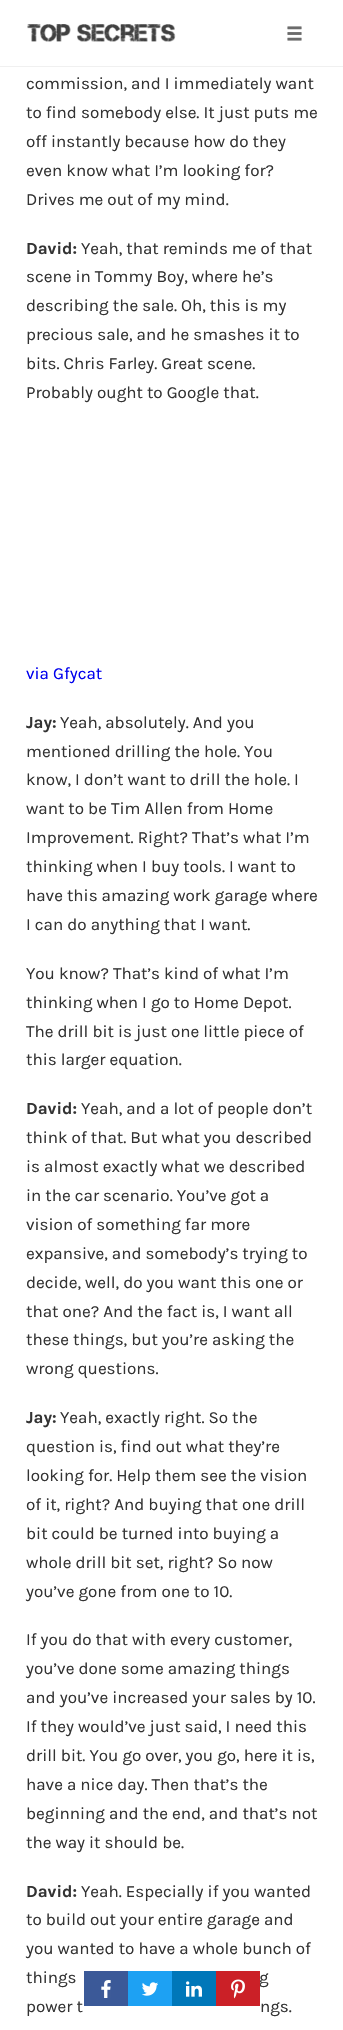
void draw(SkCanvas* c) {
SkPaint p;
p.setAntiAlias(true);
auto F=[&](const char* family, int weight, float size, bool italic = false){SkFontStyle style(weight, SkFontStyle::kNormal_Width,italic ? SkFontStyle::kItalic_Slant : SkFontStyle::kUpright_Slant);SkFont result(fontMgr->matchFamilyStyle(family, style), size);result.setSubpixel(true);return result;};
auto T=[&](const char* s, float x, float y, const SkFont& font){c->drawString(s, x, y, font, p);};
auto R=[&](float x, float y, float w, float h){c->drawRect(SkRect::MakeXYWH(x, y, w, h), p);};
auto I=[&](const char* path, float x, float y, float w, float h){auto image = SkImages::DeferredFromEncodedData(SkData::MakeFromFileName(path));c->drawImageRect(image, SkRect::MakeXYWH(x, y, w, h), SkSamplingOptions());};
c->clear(0xffffffff);
p.setColor(0xfff0f0f0);
R(0,66,343,1);
I("1.png",27,24,149,18);
I("2.png",287,26,15,15);
auto f1 = F("Karla",400,17);
p.setColor(0xff333333);
T("commission, and I immediately want",26,89,f1);
T("to find somebody else. It just puts me",26,118,f1);
T("off instantly because how do they",26,147,f1);
T("even know what I’m looking for?",26,176,f1);
T("Drives me out of my mind.",26,205,f1);
auto f2 = F("Karla",700,17);
T("David:",26,254,f2);
T("Yeah, that reminds me of that",81,254,f1);
T("scene in Tommy Boy, where he’s",26,282,f1);
T("describing the sale. Oh, this is my",26,311,f1);
T("precious sale, and he smashes it to",26,340,f1);
T("bits. Chris Farley. Great scene.",26,369,f1);
T("Probably ought to Google that.",26,398,f1);
p.setColor(0xff0000ee);
T("via Gfycat",26,679,f1);
p.setColor(0xff333333);
T("Jay:",26,728,f2);
T("Yeah, absolutely. And you",60,728,f1);
T("mentioned drilling the hole. You",26,757,f1);
T("know, I don’t want to drill the hole. I",26,785,f1);
T("want to be Tim Allen from Home",26,814,f1);
T("Improvement. Right? That’s what I’m",26,843,f1);
T("thinking when I buy tools. I want to",26,872,f1);
T("have this amazing work garage where",26,901,f1);
T("I can do anything that I want.",26,930,f1);
T("You know? That’s kind of what I’m",26,979,f1);
T("thinking when I go to Home Depot.",26,1008,f1);
T("The drill bit is just one little piece of",26,1037,f1);
T("this larger equation.",26,1065,f1);
T("David:",26,1114,f2);
T("Yeah, and a lot of people don’t",81,1114,f1);
T("think of that. But what you described",26,1143,f1);
T("is almost exactly what we described",26,1172,f1);
T("in the car scenario. You’ve got a",26,1201,f1);
T("vision of something far more",26,1230,f1);
T("expansive, and somebody’s trying to",26,1259,f1);
T("decide, well, do you want this one or",26,1288,f1);
T("that one? And the fact is, I want all",26,1317,f1);
T("these things, but you’re asking the",26,1345,f1);
T("wrong questions.",26,1374,f1);
T("Jay:",26,1423,f2);
T("Yeah, exactly right. So the",60,1423,f1);
T("question is, find out what they’re",26,1452,f1);
T("looking for. Help them see the vision",26,1481,f1);
T("of it, right? And buying that one drill",26,1510,f1);
T("bit could be turned into buying a",26,1539,f1);
T("whole drill bit set, right? So now",26,1568,f1);
T("you’ve gone from one to 10.",26,1597,f1);
T("If you do that with every customer,",26,1645,f1);
T("you’ve done some amazing things",26,1674,f1);
T("and you’ve increased your sales by 10.",26,1703,f1);
T("If they would’ve just said, I need this",26,1732,f1);
T("drill bit. You go over, you go, here it is,",26,1761,f1);
T("have a nice day. Then that’s the",26,1790,f1);
T("beginning and the end, and that’s not",26,1819,f1);
T("the way it should be.",26,1848,f1);
T("David:",26,1897,f2);
T("Yeah. Especially if you wanted",81,1897,f1);
T("to build out your entire garage and",26,1925,f1);
T("you wanted to have a whole bunch of",26,1954,f1);
T("things",26,1983,f1);
T("g",259,1983,f1);
T("power t",26,2012,f1);
T("ngs.",260,2012,f1);
p.setColor(0xff3b5998);
R(84,1971,44,35);
I("3.png",101,1980,10,18);
p.setColor(0xff1da1f3);
R(128,1971,44,35);
I("4.png",142,1982,16,14);
p.setColor(0xff0077b9);
R(172,1971,44,35);
I("5.png",186,1981,16,16);
p.setColor(0xffcb2027);
R(216,1971,44,35);
I("6.png",231,1979,14,20);
}
